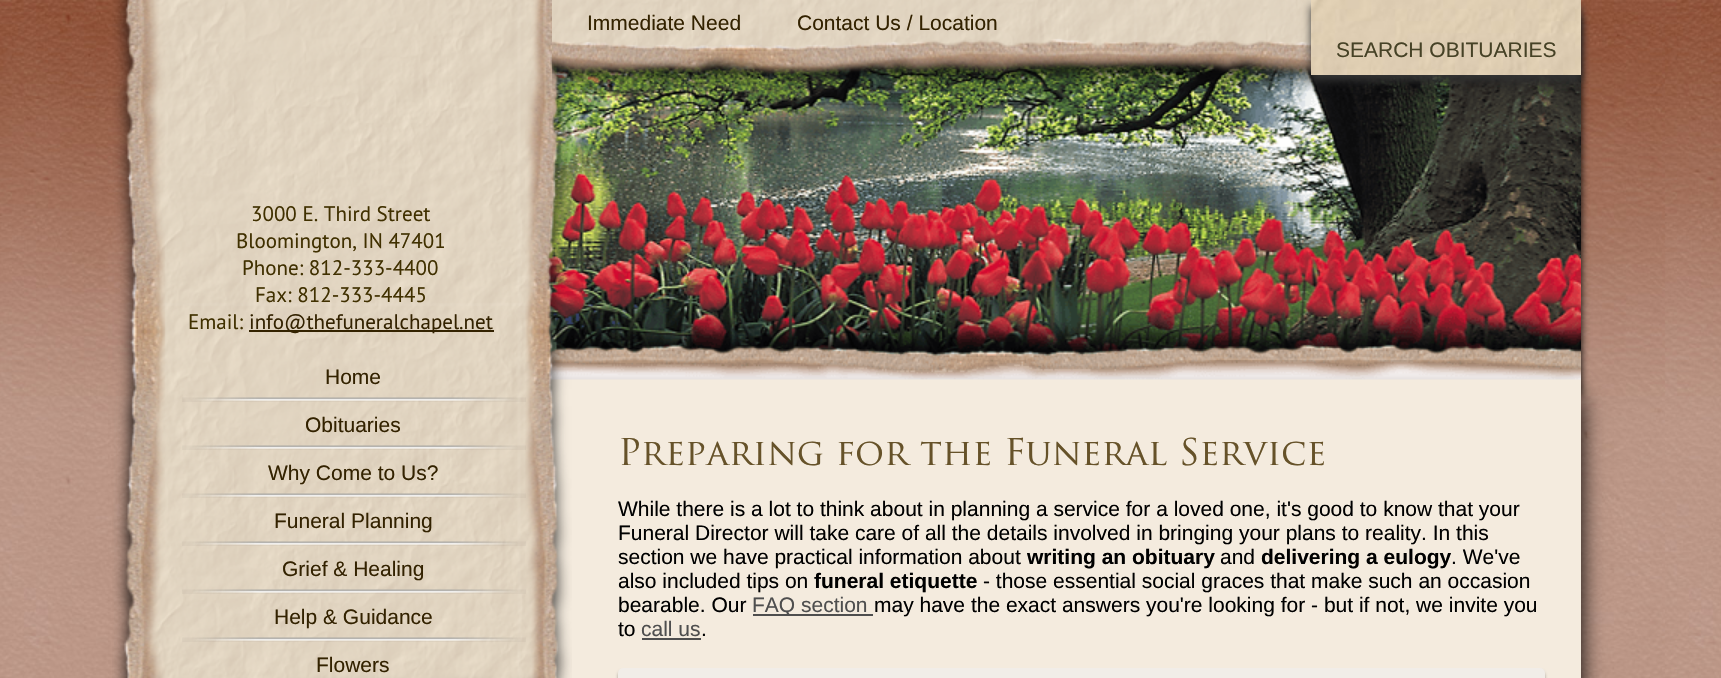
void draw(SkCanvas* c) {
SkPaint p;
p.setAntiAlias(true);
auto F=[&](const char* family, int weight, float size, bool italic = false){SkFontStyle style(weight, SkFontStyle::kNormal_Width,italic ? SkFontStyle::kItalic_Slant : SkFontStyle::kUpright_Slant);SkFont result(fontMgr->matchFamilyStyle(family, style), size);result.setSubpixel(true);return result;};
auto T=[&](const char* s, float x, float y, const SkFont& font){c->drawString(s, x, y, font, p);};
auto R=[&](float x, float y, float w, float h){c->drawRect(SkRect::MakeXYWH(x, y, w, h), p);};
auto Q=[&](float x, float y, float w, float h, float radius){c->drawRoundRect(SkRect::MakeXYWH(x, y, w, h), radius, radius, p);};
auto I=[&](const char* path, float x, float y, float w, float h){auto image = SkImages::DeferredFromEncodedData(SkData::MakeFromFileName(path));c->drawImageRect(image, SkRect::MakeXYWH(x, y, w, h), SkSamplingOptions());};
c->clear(0xffffffff);
I("1.png",0,0,1721,678);
p.setColor(0xff000000);
p.setMaskFilter(SkMaskFilter::MakeBlur(kNormal_SkBlurStyle, 4));
c->drawRect(SkRect::MakeXYWH(141,17,1440,379),p);
p.setMaskFilter(nullptr);
p.setColor(0xfff8f3f3);
R(548,361,1033,19);
I("2.png",546,0,1035,380);
p.setColor(0xff000000);
p.setMaskFilter(SkMaskFilter::MakeBlur(kNormal_SkBlurStyle, 11));
c->drawRect(SkRect::MakeXYWH(141,396,1440,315),p);
p.setMaskFilter(nullptr);
I("5.png",546,379,1035,299);
I("6.png",112,0,460,678);
I("3.png",552,0,1029,91);
auto f1 = F("Liberation Sans",400,21);
p.setColor(0xff332200);
T("Immediate Need",587,30,f1);
T("Contact Us / Location",797,30,f1);
p.setColor(0xff333333);
p.setMaskFilter(SkMaskFilter::MakeBlur(kNormal_SkBlurStyle, 4));
c->drawRect(SkRect::MakeXYWH(1311,6,270,75),p);
p.setMaskFilter(nullptr);
I("4.png",1311,0,270,75);
p.setColor(0xff464226);
T("SEARCH OBITUARIES",1336,57,f1);
auto f2 = F("PT Sans",400,21);
p.setColor(0xff403000);
T("3000 E. Third Street",251,221,f2);
T("Bloomington, IN 47401",236,248,f2);
T("Phone: 812-333-4400",242,275,f2);
T("Fax: 812-333-4445",255,302,f2);
T("Email:",188,329,f2);
p.setColor(0xff332200);
R(249,330,245,2);
T("info@thefuneralchapel.net",249,329,f2);
I("7.png",182,397,344,5);
T("Home",325,384,f1);
I("8.png",182,445,344,5);
T("Obituaries",305,432,f1);
I("9.png",182,493,344,5);
T("Why Come to Us?",268,480,f1);
I("10.png",182,541,344,5);
T("Funeral Planning",274,528,f1);
I("11.png",182,589,344,5);
T("Grief & Healing",282,576,f1);
I("12.png",182,637,344,5);
T("Help & Guidance",274,624,f1);
T("Flowers",316,672,f1);
auto f3 = F("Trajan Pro",400,36);
p.setColor(0xff665229);
T("Preparing for the Funeral Service",618,465,f3);
p.setColor(0xff000000);
T("While there is a lot to think about in planning a service for a loved one, it's good to know that your",618,516,f1);
T("Funeral Director will take care of all the details involved in bringing your plans to reality. In this",618,540,f1);
T("section we have practical information about",618,564,f1);
auto f4 = F("Liberation Sans",700,21);
T("writing an obituary",1027,564,f4);
T("and",1220,564,f1);
T("delivering a eulogy",1261,564,f4);
T(". We've",1451,564,f1);
T("also included tips on",618,588,f1);
T("funeral etiquette",814,588,f4);
T("- those essential social graces that make such an occasion",983,588,f1);
T("bearable. Our",618,612,f1);
p.setColor(0xff4e4e4e);
R(753,614,120,2);
T("FAQ section",752,612,f1);
p.setColor(0xff000000);
T("may have the exact answers you're looking for - but if not, we invite you",874,612,f1);
T("to",618,636,f1);
p.setColor(0xff4e4e4e);
T("call us",641,636,f1);
R(642,638,59,2);
p.setColor(0xff000000);
T(".",701,636,f1);
p.setColor(0x59000000);
p.setMaskFilter(SkMaskFilter::MakeBlur(kNormal_SkBlurStyle, 1.5));
c->drawRoundRect(SkRect::MakeXYWH(618,671,927,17),5,5,p);
p.setMaskFilter(nullptr);
p.setColor(0xfff1ede8);
Q(618,668,927,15,5);
}
